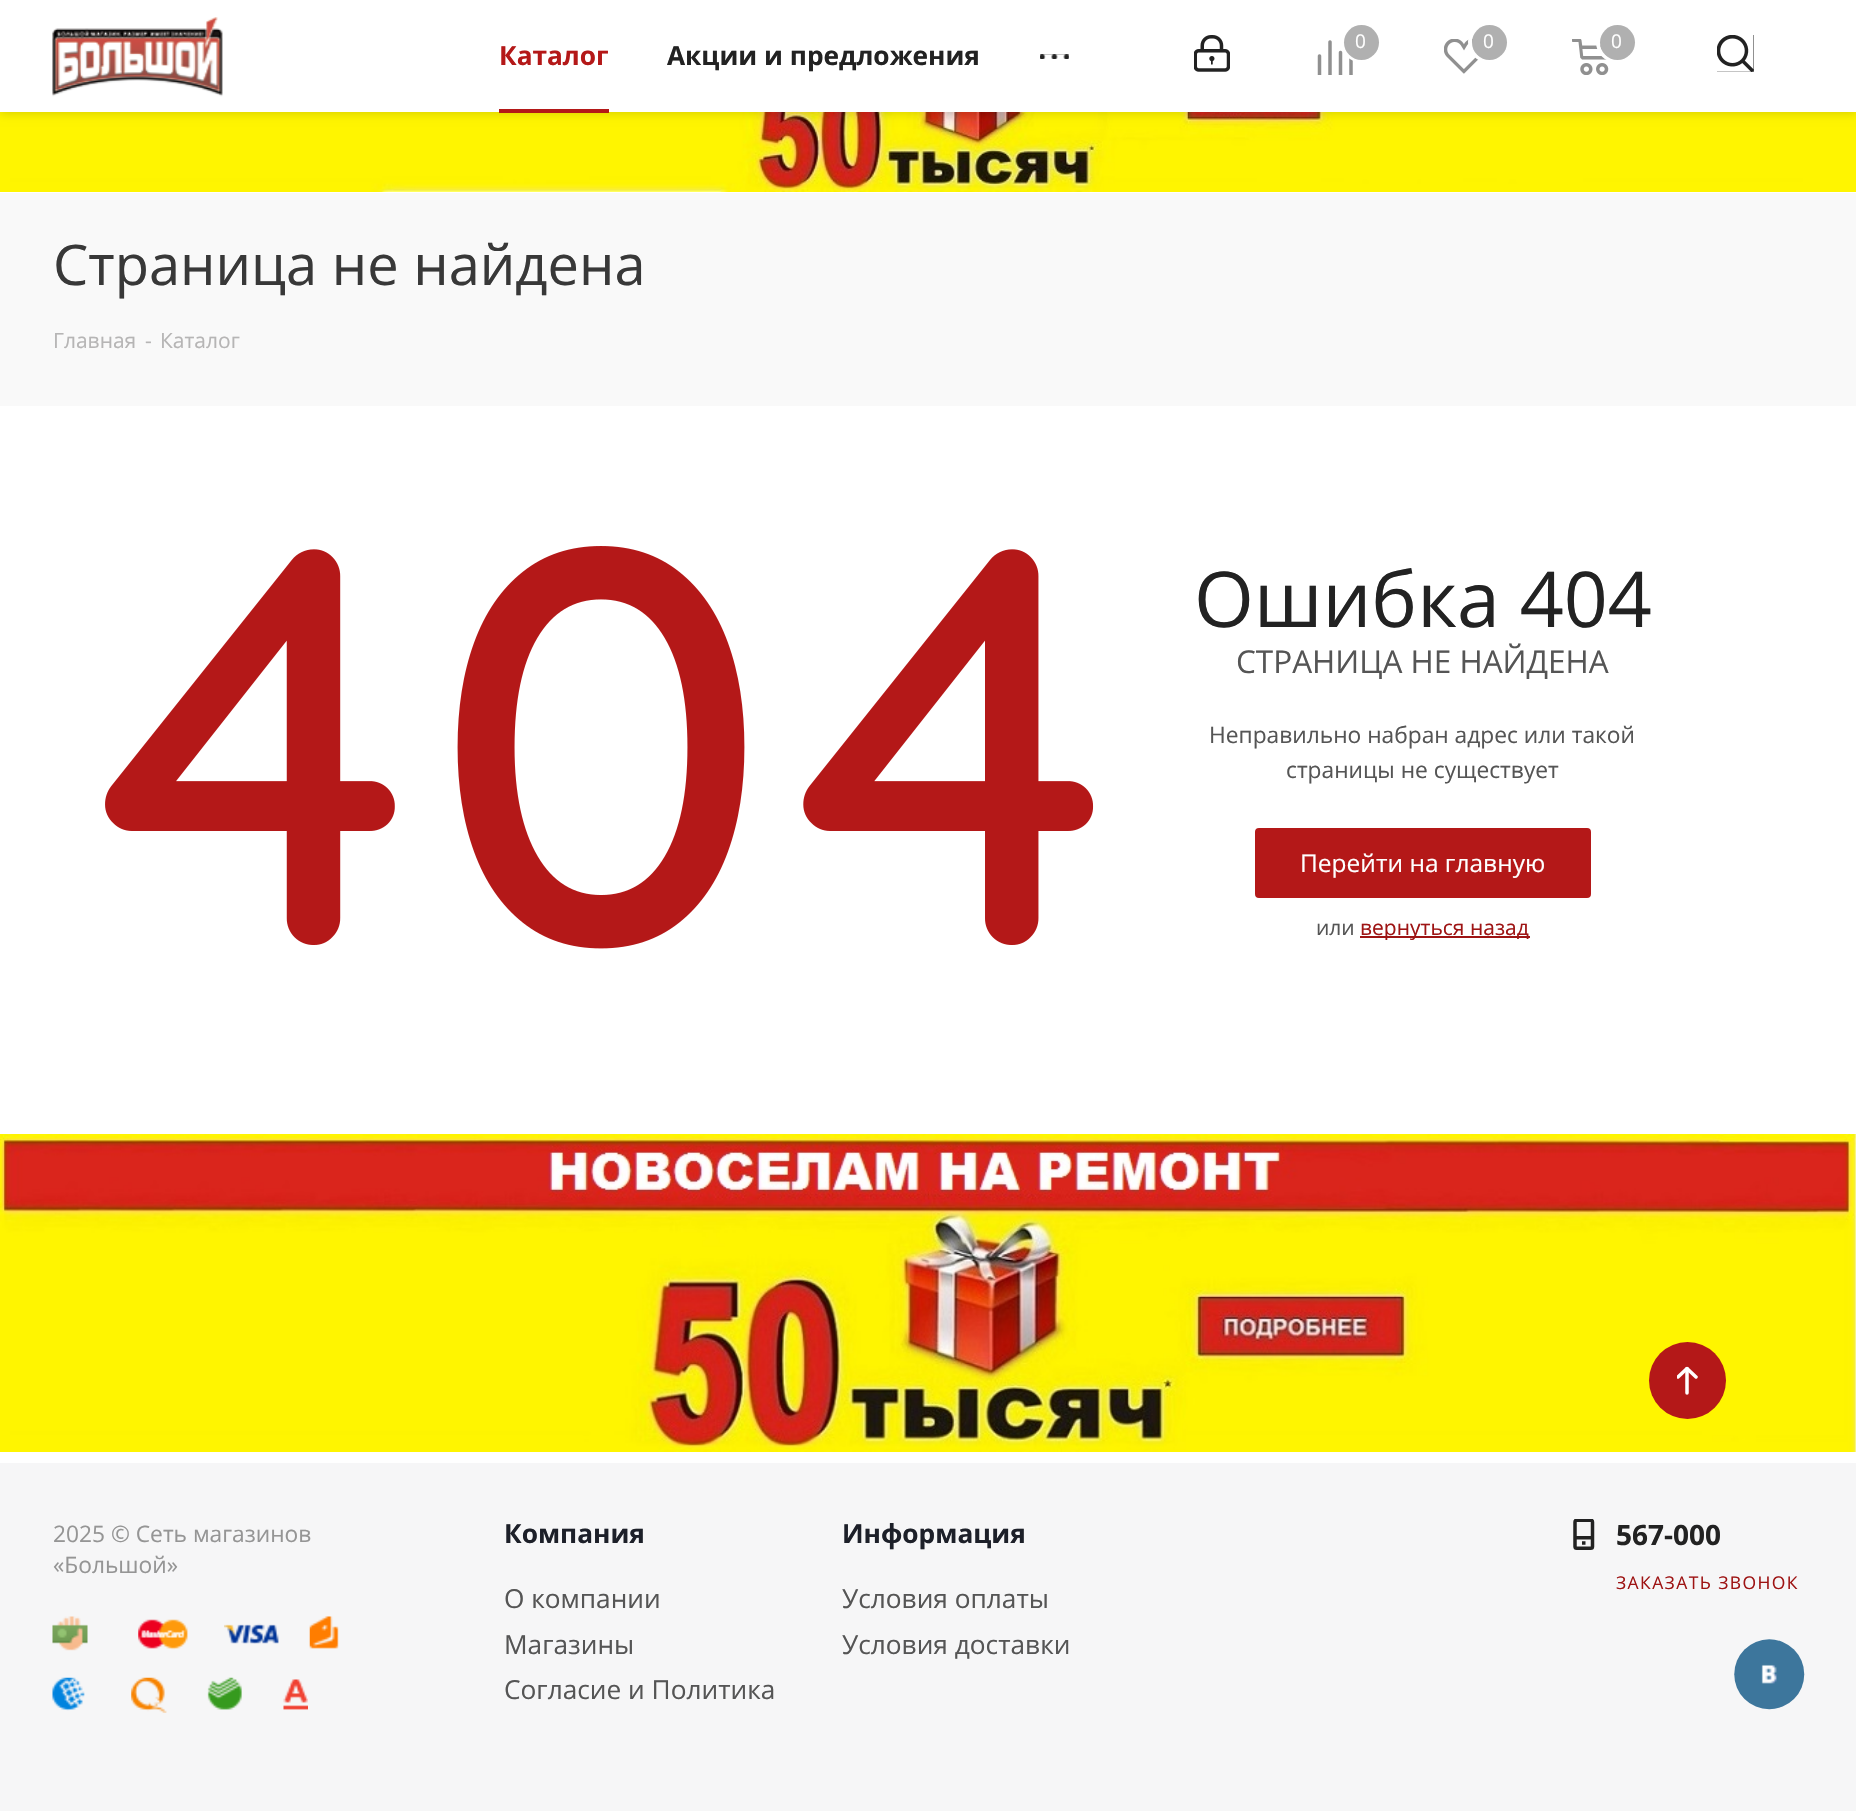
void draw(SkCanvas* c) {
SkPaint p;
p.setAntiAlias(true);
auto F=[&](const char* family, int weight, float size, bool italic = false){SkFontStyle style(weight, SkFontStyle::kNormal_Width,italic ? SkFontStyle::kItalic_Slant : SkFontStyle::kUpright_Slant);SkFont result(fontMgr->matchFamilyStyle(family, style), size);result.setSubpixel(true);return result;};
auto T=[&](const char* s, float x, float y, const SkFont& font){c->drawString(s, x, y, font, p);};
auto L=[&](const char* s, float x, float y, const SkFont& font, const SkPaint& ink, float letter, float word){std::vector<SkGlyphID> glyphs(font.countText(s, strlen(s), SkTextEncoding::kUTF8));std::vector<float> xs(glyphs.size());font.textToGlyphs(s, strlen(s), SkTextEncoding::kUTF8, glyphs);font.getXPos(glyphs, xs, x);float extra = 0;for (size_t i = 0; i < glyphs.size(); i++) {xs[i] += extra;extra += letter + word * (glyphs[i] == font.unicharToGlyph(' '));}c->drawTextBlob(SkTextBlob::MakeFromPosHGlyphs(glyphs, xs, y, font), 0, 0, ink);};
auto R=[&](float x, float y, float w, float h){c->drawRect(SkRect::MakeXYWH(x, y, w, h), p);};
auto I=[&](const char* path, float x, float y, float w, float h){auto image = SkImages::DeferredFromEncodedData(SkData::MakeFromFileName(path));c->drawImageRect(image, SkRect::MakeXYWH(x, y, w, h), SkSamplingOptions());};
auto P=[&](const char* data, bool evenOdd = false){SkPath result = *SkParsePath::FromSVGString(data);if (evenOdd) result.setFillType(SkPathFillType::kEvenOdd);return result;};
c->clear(0xffffffff);
I("8.png",0,112,1856,80);
p.setColor(0x24000000);
p.setMaskFilter(SkMaskFilter::MakeBlur(kNormal_SkBlurStyle, 4.5));
c->drawRect(SkRect::MakeXYWH(0,2,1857,112),p);
p.setMaskFilter(nullptr);
p.setColor(0xffffffff);
R(0,0,1856,112);
I("1.png",52,17,171,80);
auto f1 = F("Open Sans",700,26.25);
p.setColor(0xffb41818);
T("Каталог",499,65,f1);
R(499,109,110,4);
p.setColor(0xff222222);
T("Акции и предложения",667,65,f1);
R(1040,54,29,5);
I("2.png",1040,54,29,5);
I("3.png",1194,35,36,37);
I("4.png",1317,40,36,35);
p.setStroke(true);
p.setStrokeWidth(4);
p.setColor(0xffffffff);
c->drawCircle(1362,42,19,p);
p.setStroke(false);
p.setColor(0xffb0b0b0);
c->drawCircle(1361.5,42.5,17.5,p);
auto f2 = F("Open Sans",400,19);
p.setColor(0xffffffff);
T("0",1355,48,f2);
I("5.png",1444,39,36,35);
p.setStroke(true);
c->drawCircle(1489,42,19,p);
p.setStroke(false);
p.setColor(0xffb0b0b0);
c->drawCircle(1489.5,42.5,17.5,p);
p.setColor(0xffffffff);
T("0",1483,48,f2);
I("6.png",1572,39,37,36);
p.setStroke(true);
c->drawCircle(1617,42,19,p);
p.setStroke(false);
p.setColor(0xffb0b0b0);
c->drawCircle(1617.5,42.5,17.5,p);
p.setColor(0xffffffff);
T("0",1611,48,f2);
p.setColor(0xff222222);
R(1717,35,37,37);
I("7.png",1717,35,37,37);
p.setColor(0xfff9f9f9);
R(0,193,1856,213);
auto f3 = F("Open Sans",400,56);
p.setColor(0xff383838);
T("Страница не найдена",53,285,f3);
auto f4 = F("Open Sans",400,21);
p.setColor(0xffb6b5b5);
T("Главная",53,348,f4);
T("-",145,348,f4);
T("Каталог",160,348,f4);
I("9.png",105,546,989,403);
auto f5 = F("Open Sans",400,77);
p.setColor(0xff222222);
T("Ошибка 404",1194,627,f5);
auto f6 = F("Open Sans",400,31.5);
p.setColor(0xff555555);
T("СТРАНИЦА НЕ НАЙДЕНА",1236,673,f6);
auto f7 = F("Open Sans",400,22.75);
T("Неправильно набран адрес или такой",1209,743,f7);
T("страницы не существует",1286,778,f7);
p.setColor(0xffb41818);
c->drawRoundRect(SkRect::MakeXYWH(1256,829,334,68),3,3,p);
p.setStroke(true);
p.setStrokeWidth(2);
c->drawRoundRect(SkRect::MakeXYWH(1256,829,334,68),3,3,p);
auto f8 = F("Open Sans",400,24.5);
p.setStroke(false);
p.setColor(0xffffffff);
T("Перейти на главную",1300,872,f8);
p.setColor(0xff555555);
T("или",1316,935,f4);
p.setColor(0xff9e1414);
R(1360,936,170,2);
T("вернуться назад",1360,935,f4);
I("10.png",0,1134,1856,318);
p.setColor(0xffb41818);
c->drawCircle(1687.5,1380.5,38.5,p);
p.setStroke(true);
p.setStrokeWidth(3.5);
p.setStrokeCap(SkPaint::kRound_Cap);
p.setStrokeJoin(SkPaint::kRound_Join);
p.setColor(0xffffffff);
c->drawPath(P("M1687 1368.5v24.5"),p);
c->save();
c->clipRect(SkRect::MakeXYWH(1677,1367,21,175));
c->drawPath(P("M1678 1377l9-8.5l9 8.5"),p);
c->restore();
p.setStroke(false);
p.setColor(0xfff6f6f7);
R(0,1463,1856,348);
p.setColor(0xff959595);
T("2025 © Сеть магазинов",53,1542,f7);
T("«Большой»",53,1573,f7);
I("11.png",52,1616,36,35);
I("12.png",138,1619,50,31);
I("13.png",224,1623,55,21);
I("14.png",309,1616,30,33);
I("15.png",52,1677,33,34);
I("16.png",131,1677,36,36);
I("17.png",207,1677,35,33);
I("18.png",283,1679,25,31);
p.setColor(0xff1d2029);
T("Компания",504,1543,f1);
auto f9 = F("Open Sans",400,26.25);
p.setColor(0xff555555);
T("О компании",504,1608,f9);
T("Магазины",504,1654,f9);
T("Согласие и Политика",504,1699,f9);
p.setColor(0xff1d2029);
T("Информация",842,1543,f1);
p.setColor(0xff555555);
T("Условия оплаты",842,1608,f9);
T("Условия доставки",842,1654,f9);
I("19.png",1573,1519,22,31);
auto f10 = F("Open Sans",700,28);
p.setColor(0xff222222);
T("567-000",1616,1545,f10);
auto f11 = F("Open Sans",400,17.5);
p.setColor(0xff9e1414);
L("ЗАКАЗАТЬ ЗВОНОК",1616,1589,f11,p,1.4,0);
I("20.png",1734,1639,71,71);
}
